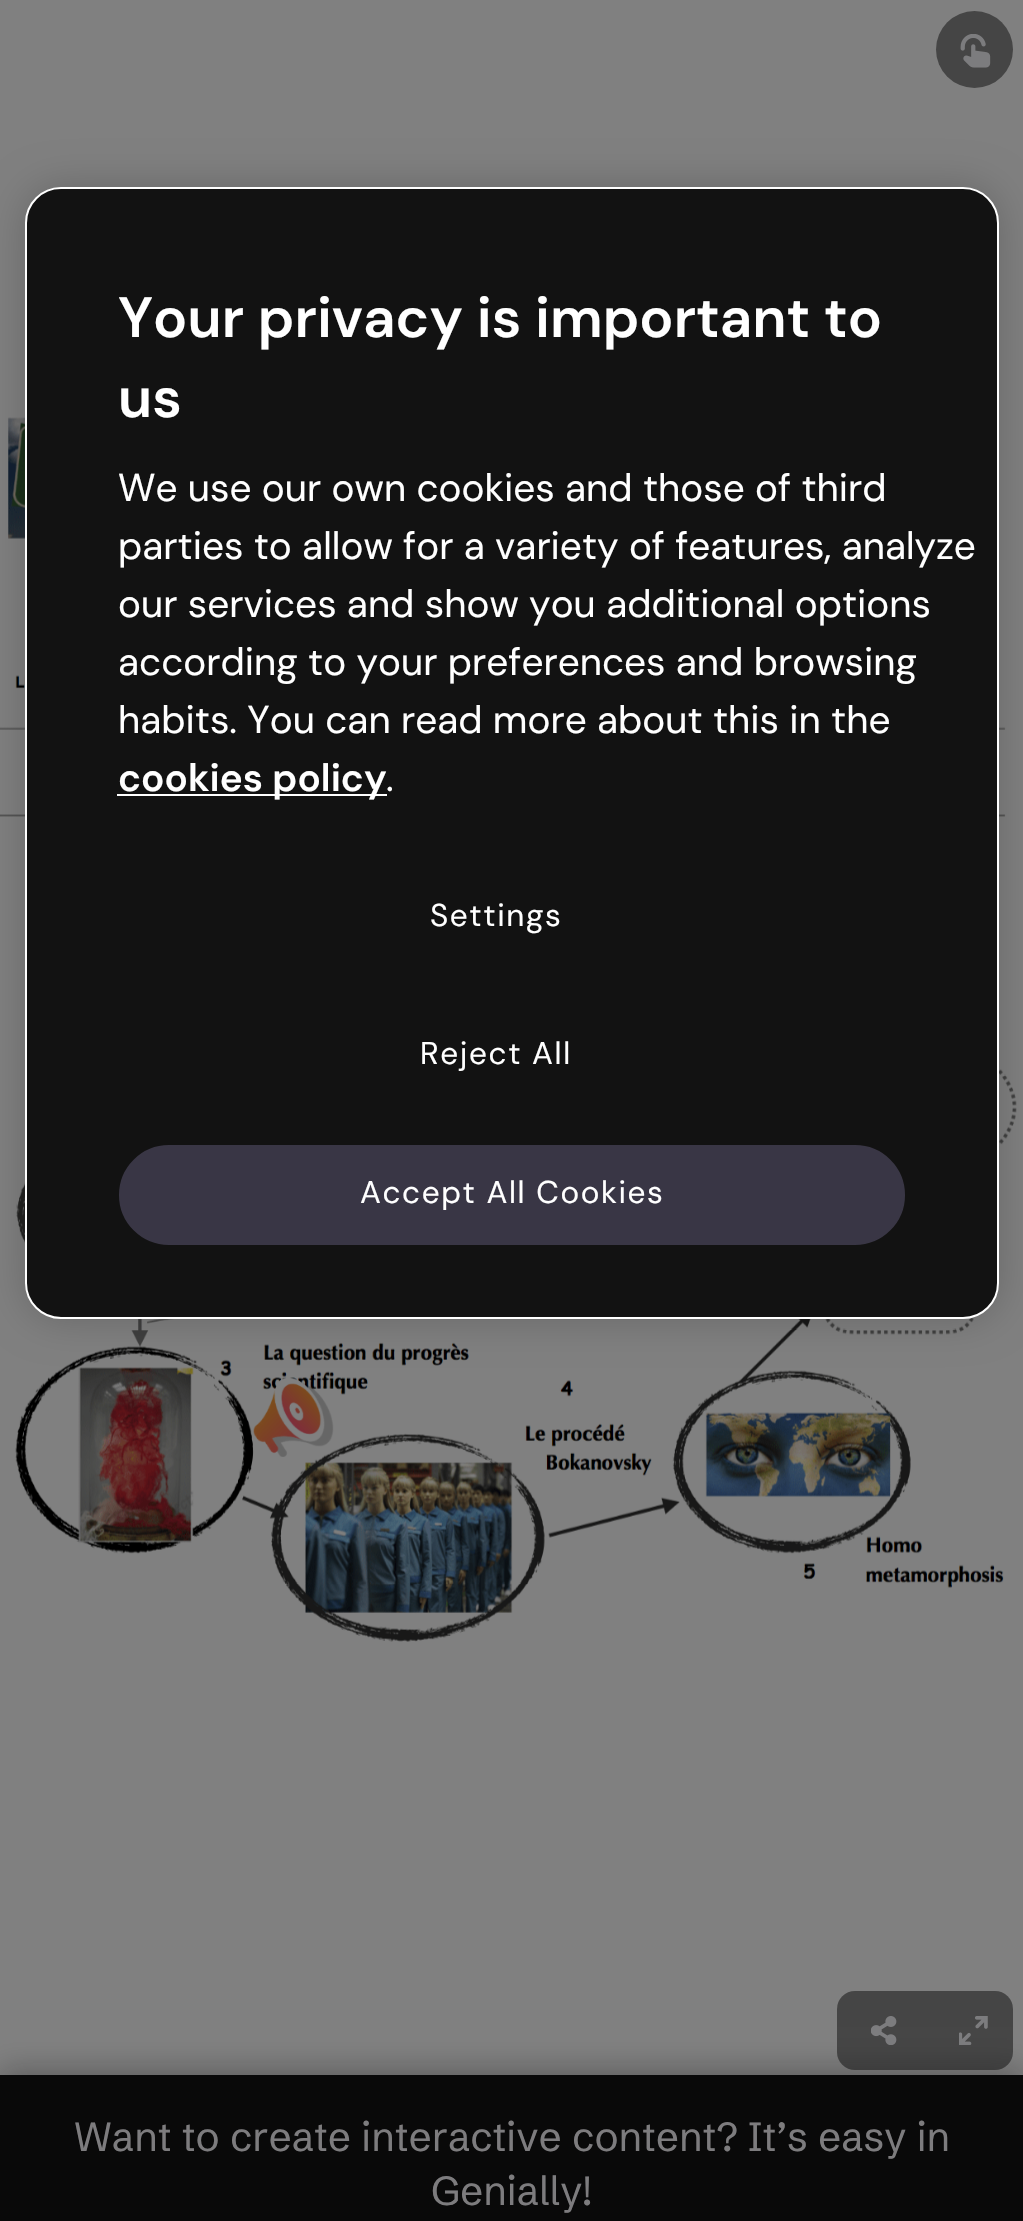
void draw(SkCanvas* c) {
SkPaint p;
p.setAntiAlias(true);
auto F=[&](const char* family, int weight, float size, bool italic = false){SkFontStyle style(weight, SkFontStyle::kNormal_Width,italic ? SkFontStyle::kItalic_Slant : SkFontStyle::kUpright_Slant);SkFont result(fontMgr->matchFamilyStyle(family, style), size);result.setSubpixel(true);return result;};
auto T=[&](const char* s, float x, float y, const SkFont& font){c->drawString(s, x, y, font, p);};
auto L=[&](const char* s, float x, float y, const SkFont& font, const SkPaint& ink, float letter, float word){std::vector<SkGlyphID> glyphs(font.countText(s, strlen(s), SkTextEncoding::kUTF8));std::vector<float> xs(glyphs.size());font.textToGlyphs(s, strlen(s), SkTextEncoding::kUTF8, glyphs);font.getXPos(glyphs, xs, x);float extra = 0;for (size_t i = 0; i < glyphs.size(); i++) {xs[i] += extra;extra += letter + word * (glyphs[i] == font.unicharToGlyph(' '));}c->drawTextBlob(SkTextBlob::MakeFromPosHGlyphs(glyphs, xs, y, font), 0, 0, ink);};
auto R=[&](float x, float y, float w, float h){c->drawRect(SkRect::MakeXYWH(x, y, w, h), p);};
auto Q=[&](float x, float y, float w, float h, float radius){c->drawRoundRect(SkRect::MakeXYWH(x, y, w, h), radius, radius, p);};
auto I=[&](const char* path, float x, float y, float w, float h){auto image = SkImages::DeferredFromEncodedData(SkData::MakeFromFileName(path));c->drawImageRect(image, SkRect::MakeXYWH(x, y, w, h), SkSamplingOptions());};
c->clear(0xff808080);
I("4.png",0,363,1017,1279);
I("5.png",253,1377,81,80);
p.setColor(0x33000000);
p.setMaskFilter(SkMaskFilter::MakeBlur(kNormal_SkBlurStyle, 20));
c->drawRoundRect(SkRect::MakeXYWH(25,187,974,1132),36,36,p);
p.setMaskFilter(nullptr);
p.setColor(0xff121212);
c->drawRoundRect(SkRect::MakeXYWH(26,188,972,1130),35,35,p);
p.setStroke(true);
p.setStrokeWidth(2);
p.setColor(0xffffffff);
c->drawRoundRect(SkRect::MakeXYWH(26,188,972,1130),35,35,p);
auto f1 = F("DM Sans",600,56.75);
p.setStroke(false);
T("Your privacy is important to",118,337,f1);
T("us",118,417,f1);
auto f2 = F("DM Sans",400,38.75);
T("We use our own cookies and those of third",118,501,f2);
T("parties to allow for a variety of features, analyze",118,559,f2);
T("our services and show you additional options",118,617,f2);
T("according to your preferences and browsing",118,675,f2);
T("habits. You can read more about this in the",118,733,f2);
R(117,794,270,2);
auto f3 = F("DM Sans",600,38.75);
T("cookies policy",118,791,f3);
T(".",386,791,f2);
auto f4 = F("DM Sans",400,31.5);
L("Settings",430,926,f4,p,1.6,0);
L("Reject All",420,1064,f4,p,1.6,0);
p.setColor(0xff393645);
c->drawRoundRect(SkRect::MakeXYWH(118,1144,788,102),51,51,p);
p.setStroke(true);
p.setColor(0xff121212);
c->drawRoundRect(SkRect::MakeXYWH(118,1144,788,102),51,51,p);
p.setStroke(false);
p.setColor(0xffffffff);
L("Accept All Cookies",360,1203,f4,p,1.6,0);
p.setColor(0xff454545);
c->drawCircle(974.5,49.5,38.5,p);
I("1.png",960,34,31,34);
Q(837,1991,176,79,18);
I("2.png",871,2016,26,29);
I("3.png",959,2016,29,29);
p.setColor(0x4d090909);
p.setMaskFilter(SkMaskFilter::MakeBlur(kNormal_SkBlurStyle, 14.5));
c->drawRect(SkRect::MakeXYWH(0,2070,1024,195),p);
p.setMaskFilter(nullptr);
p.setColor(0xff090909);
R(0,2075,1023,146);
auto f5 = F("Schibsted Grotesk",400,40.5);
p.setColor(0xff7d7c7e);
T("Want to create interactive content? It’s easy in",74,2151,f5);
T("Genially!",431,2205,f5);
}
